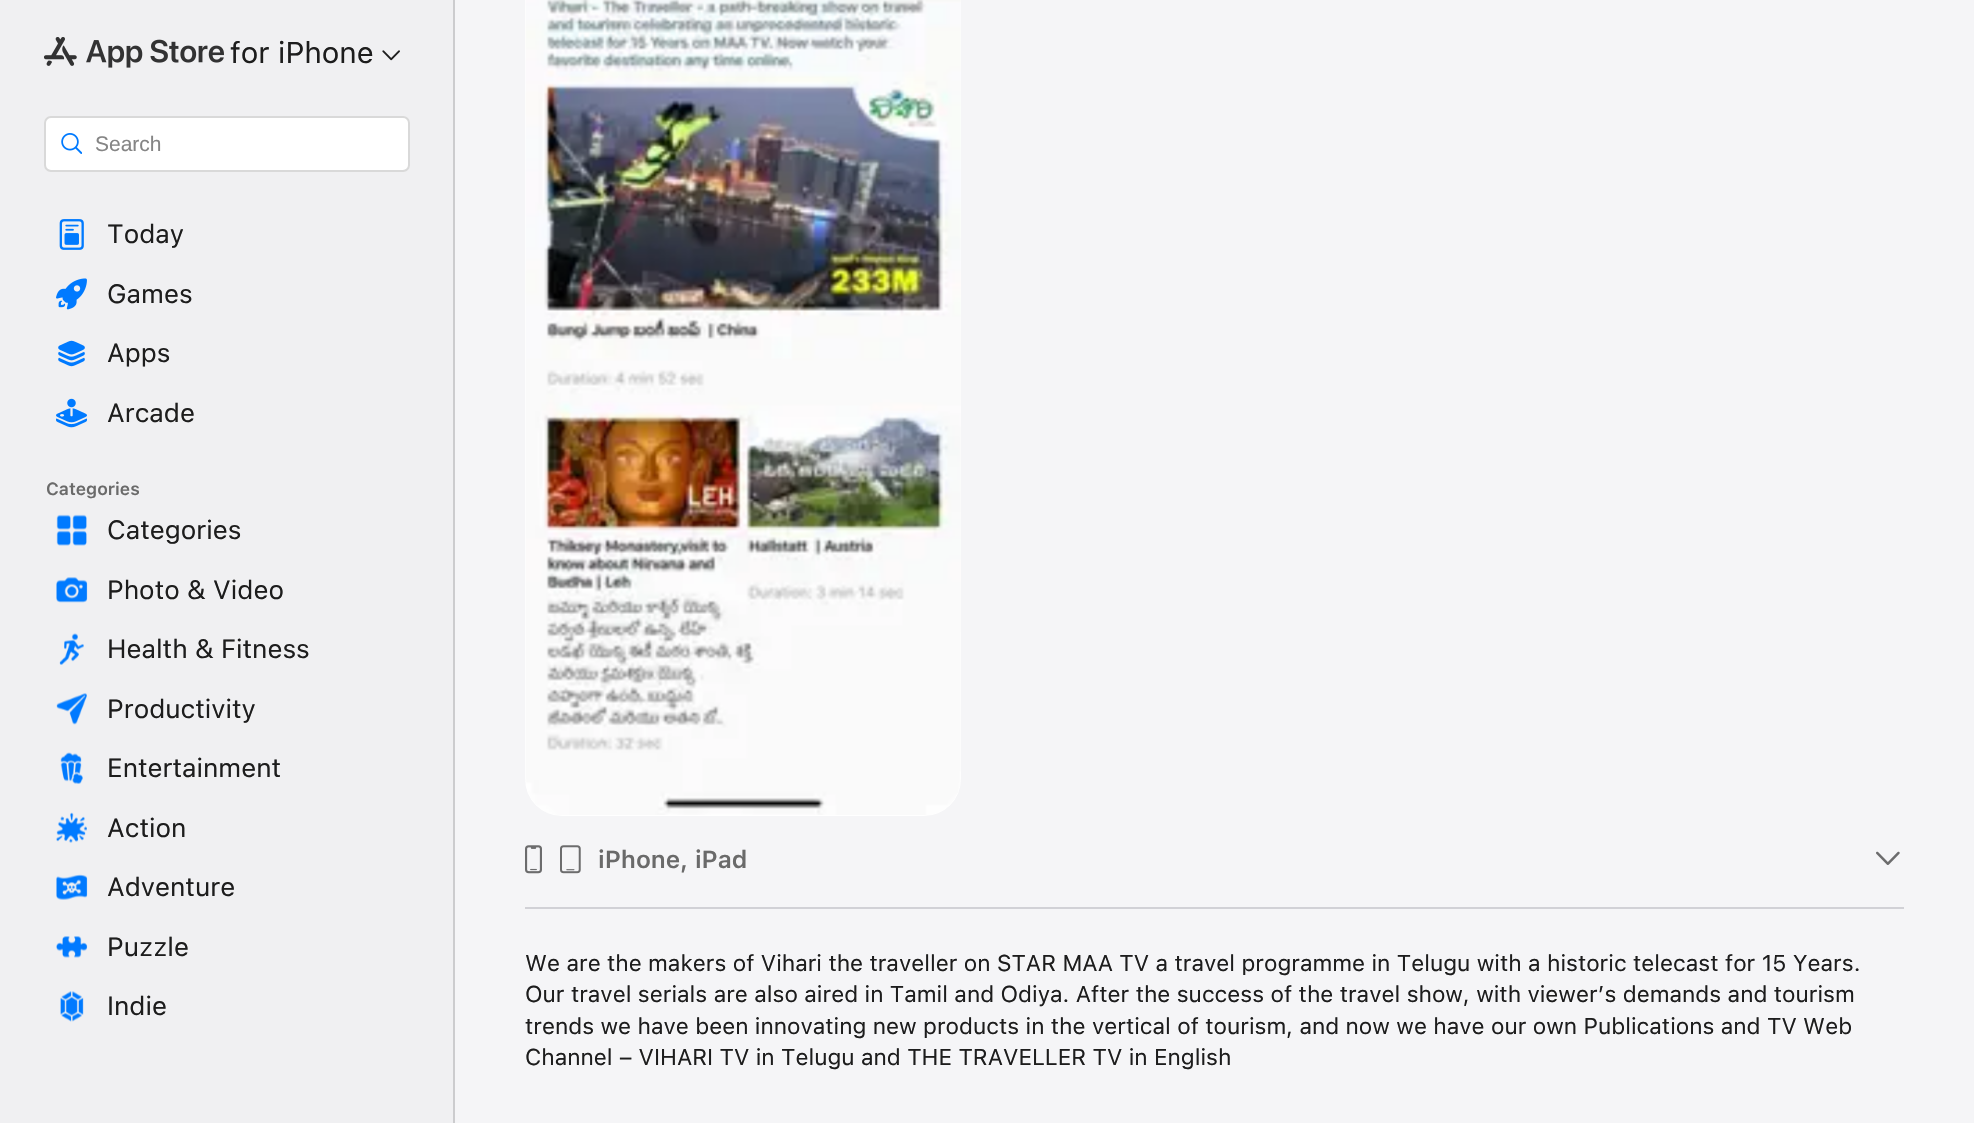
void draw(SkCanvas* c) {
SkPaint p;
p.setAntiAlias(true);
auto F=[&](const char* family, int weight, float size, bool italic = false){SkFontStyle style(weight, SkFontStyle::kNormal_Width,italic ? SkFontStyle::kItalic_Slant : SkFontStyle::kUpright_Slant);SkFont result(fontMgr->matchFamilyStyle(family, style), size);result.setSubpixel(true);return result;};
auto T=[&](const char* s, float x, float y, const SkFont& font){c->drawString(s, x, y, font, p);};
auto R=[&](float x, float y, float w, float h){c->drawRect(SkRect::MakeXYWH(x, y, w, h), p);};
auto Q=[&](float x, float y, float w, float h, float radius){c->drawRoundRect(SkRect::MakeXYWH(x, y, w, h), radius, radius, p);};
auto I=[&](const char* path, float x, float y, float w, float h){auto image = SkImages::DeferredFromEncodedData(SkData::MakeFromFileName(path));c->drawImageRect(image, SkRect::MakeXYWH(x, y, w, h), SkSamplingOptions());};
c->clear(0xfff5f5f7);
p.setColor(0xfff0f0f2);
R(0,0,453,1123);
p.setColor(0xffccccce);
R(453,0,2,1123);
I("1.png",44,37,180,31);
auto f1 = F("SF",400,29.75);
p.setColor(0xff1d1d1d);
T("for iPhone",230,63,f1);
I("2.png",382,50,18,11);
p.setColor(0xffffffff);
Q(44,116,366,56,7);
p.setStroke(true);
p.setStrokeWidth(2);
p.setColor(0x26000000);
c->drawRoundRect(SkRect::MakeXYWH(45,117,364,54),6,6,p);
I("3.png",61,133,21,21);
auto f2 = F("Liberation Sans",400,21);
p.setStroke(false);
p.setColor(0xff858585);
T("Search",95,151,f2);
I("4.png",59,219,25,31);
auto f3 = F("SF",400,26.25);
p.setColor(0xff1d1d1d);
T("Today",107,243,f3);
I("5.png",56,278,31,32);
T("Games",107,303,f3);
I("6.png",58,340,27,27);
T("Apps",107,362,f3);
I("7.png",56,398,31,30);
T("Arcade",107,422,f3);
auto f4 = F("SF",600,17.5);
p.setColor(0xff6a6a6a);
T("Categories",46,495,f4);
I("8.png",56,514,31,32);
p.setColor(0xff1d1d1d);
T("Categories",107,539,f3);
I("9.png",56,577,32,26);
T("Photo & Video",107,599,f3);
I("10.png",59,633,25,32);
T("Health & Fitness",107,658,f3);
I("11.png",56,693,31,32);
T("Productivity",107,718,f3);
I("12.png",60,752,23,32);
T("Entertainment",107,777,f3);
I("13.png",56,812,31,31);
T("Action",107,837,f3);
I("14.png",56,874,32,26);
T("Adventure",107,896,f3);
I("15.png",56,936,32,22);
T("Puzzle",107,956,f3);
I("16.png",60,991,24,31);
T("Indie",107,1015,f3);
p.setColor(0xffffffff);
Q(525,-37,436,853,37);
I("17.png",525,0,436,815);
I("18.png",525,845,17,29);
I("19.png",560,845,21,29);
auto f5 = F("SF",600,24.5);
p.setColor(0xff6a6a6a);
T("iPhone, iPad",598,868,f5);
I("20.png",1876,851,24,14);
p.setColor(0xffd1d1d6);
R(525,907,1379,2);
auto f6 = F("SF",400,22.75);
p.setColor(0xff1d1d1d);
T("We are the makers of Vihari the traveller on STAR MAA TV a travel programme in Telugu with a historic telecast for 15 Years.",525,971,f6);
T("Our travel serials are also aired in Tamil and Odiya. After the success of the travel show, with viewer’s demands and tourism",525,1002,f6);
T("trends we have been innovating new products in the vertical of tourism, and now we have our own Publications and TV Web",525,1034,f6);
T("Channel – VIHARI TV in Telugu and THE TRAVELLER TV in English",525,1065,f6);
}
